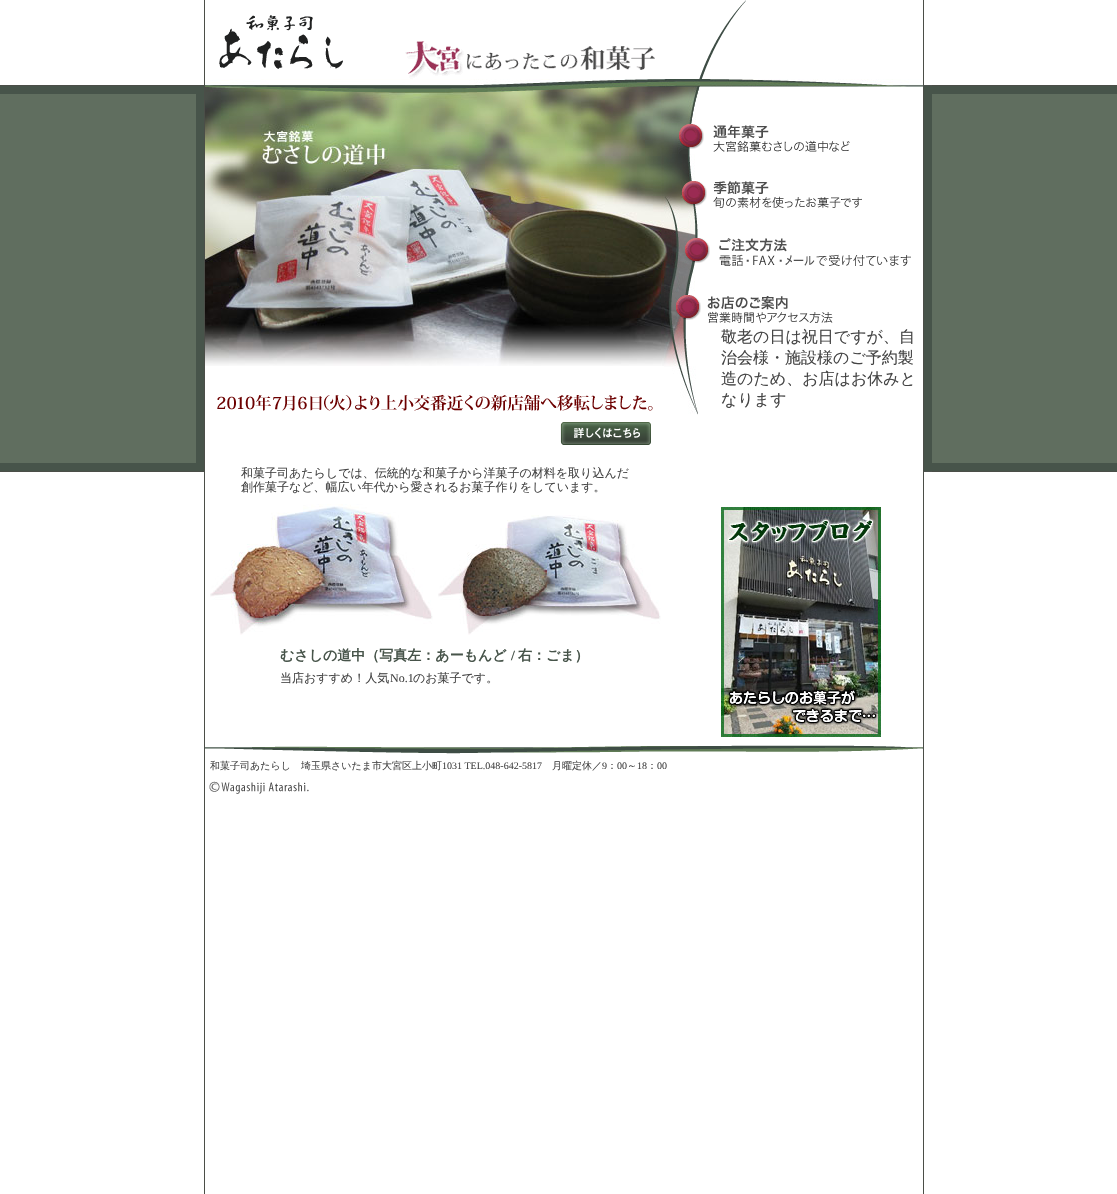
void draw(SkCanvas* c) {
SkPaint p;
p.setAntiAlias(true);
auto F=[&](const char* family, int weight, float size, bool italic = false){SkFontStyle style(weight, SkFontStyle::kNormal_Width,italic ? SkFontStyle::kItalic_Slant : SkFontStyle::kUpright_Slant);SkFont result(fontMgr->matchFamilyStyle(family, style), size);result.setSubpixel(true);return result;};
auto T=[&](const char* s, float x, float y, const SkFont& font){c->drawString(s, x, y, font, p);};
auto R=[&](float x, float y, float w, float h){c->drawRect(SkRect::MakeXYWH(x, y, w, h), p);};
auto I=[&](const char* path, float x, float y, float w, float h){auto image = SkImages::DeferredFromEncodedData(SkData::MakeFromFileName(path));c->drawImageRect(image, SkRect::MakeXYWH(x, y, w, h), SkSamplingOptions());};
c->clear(0xffffffff);
p.setColor(0xff4b4e48);
R(0,85,204,1);
p.setColor(0xff47544a);
R(0,86,204,8);
p.setColor(0xff606e5f);
R(0,94,196,369);
p.setColor(0xff47544a);
R(196,94,8,369);
R(0,463,204,8);
p.setColor(0xff4b4e48);
R(0,471,204,1);
R(204,0,1,1194);
R(923,0,1,1194);
p.setColor(0xff4f5450);
R(924,85,8,1);
p.setColor(0xff4b4e48);
R(932,85,185,1);
p.setColor(0xff47544a);
R(924,86,193,8);
R(924,94,8,377);
p.setColor(0xff606e5f);
R(932,94,185,369);
p.setColor(0xff47544a);
R(932,463,185,8);
p.setColor(0xff4f5450);
R(924,471,8,1);
p.setColor(0xff4b4e48);
R(932,471,185,1);
I("1.png",219,15,124,54);
I("2.png",405,41,250,38);
I("3.png",699,0,47,79);
I("4.png",205,79,718,13);
I("5.png",664,92,35,31);
I("6.png",664,123,14,31);
I("7.png",678,123,172,31);
I("8.png",664,154,31,26);
I("9.png",664,180,17,30);
I("10.png",681,180,181,30);
I("11.png",664,210,34,27);
I("12.png",664,237,20,31);
I("13.png",684,237,227,31);
I("14.png",664,268,31,25);
I("15.png",664,293,11,33);
I("16.png",675,293,158,33);
I("17.png",664,326,34,89);
auto f1 = F("WenQuanYi Zen Hei",500,16);
p.setColor(0xff444444);
T("敬老の日は祝日ですが、自",721,342,f1);
T("治会様・施設様のご予約製",721,363,f1);
T("造のため、お店はお休みと",721,384,f1);
T("なります",721,405,f1);
I("18.png",721,507,160,230);
I("19.png",205,92,459,138);
I("20.png",205,230,459,136);
I("21.png",217,394,436,51);
auto f2 = F("WenQuanYi Zen Hei",500,12);
T("和菓子司あたらしでは、伝統的な和菓子から洋菓子の材料を取り込んだ",241,477,f2);
T("創作菓子など、幅広い年代から愛されるお菓子作りをしています。",241,491,f2);
I("22.png",210,504,223,131);
I("23.png",438,515,223,120);
auto f3 = F("WenQuanYi Zen Hei",700,14);
p.setColor(0xff47544a);
T("むさしの道中（写真左：あーもんど",280,660,f3);
auto f4 = F("Liberation Serif",700,14);
T("/",511,660,f4);
T("右：ごま）",518,660,f3);
p.setColor(0xff444444);
T("当店おすすめ！人気",280,682,f2);
auto f5 = F("Liberation Serif",400,12);
T("No.1",390,682,f5);
T("のお菓子です。",413,682,f2);
I("24.png",205,745,718,9);
auto f6 = F("WenQuanYi Zen Hei",500,10);
T("和菓子司あたらし　埼玉県さいたま市大宮区上小町",210,769,f6);
auto f7 = F("Liberation Serif",400,10);
T("1031 TEL.048-642-5817",442,769,f7);
T("月曜定休／",552,769,f6);
T("9",602,769,f7);
T("：",607,769,f6);
T("00",617,769,f7);
T("～",627,769,f6);
T("18",637,769,f7);
T("：",647,769,f6);
T("00",657,769,f7);
I("25.png",209,781,100,13);
}
